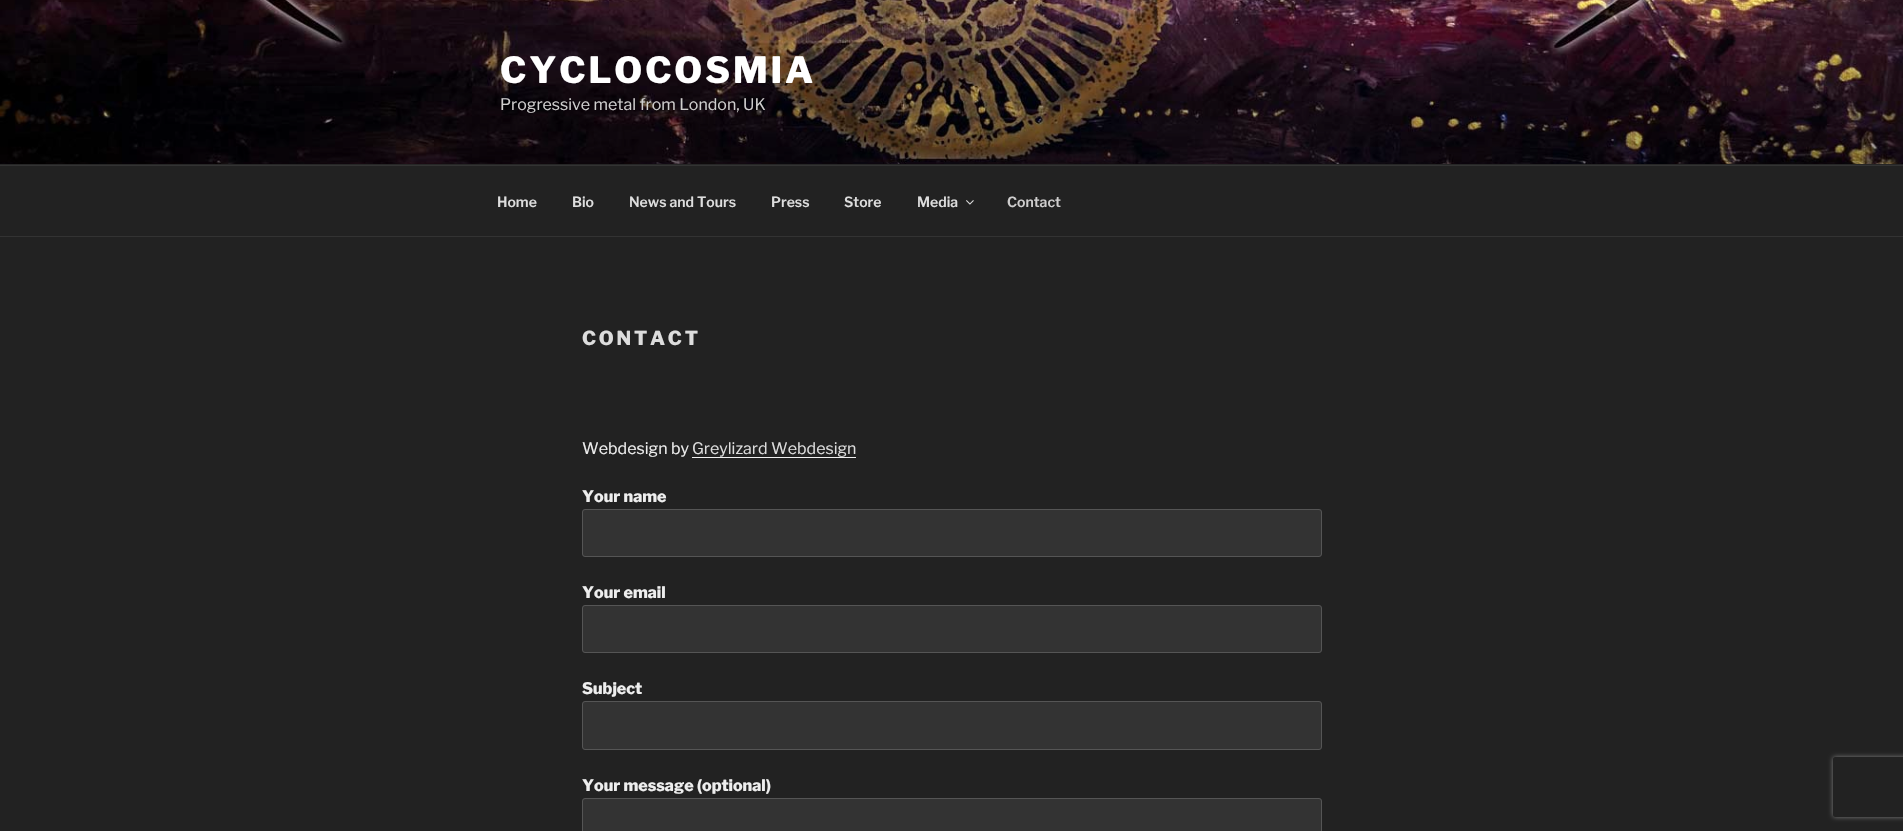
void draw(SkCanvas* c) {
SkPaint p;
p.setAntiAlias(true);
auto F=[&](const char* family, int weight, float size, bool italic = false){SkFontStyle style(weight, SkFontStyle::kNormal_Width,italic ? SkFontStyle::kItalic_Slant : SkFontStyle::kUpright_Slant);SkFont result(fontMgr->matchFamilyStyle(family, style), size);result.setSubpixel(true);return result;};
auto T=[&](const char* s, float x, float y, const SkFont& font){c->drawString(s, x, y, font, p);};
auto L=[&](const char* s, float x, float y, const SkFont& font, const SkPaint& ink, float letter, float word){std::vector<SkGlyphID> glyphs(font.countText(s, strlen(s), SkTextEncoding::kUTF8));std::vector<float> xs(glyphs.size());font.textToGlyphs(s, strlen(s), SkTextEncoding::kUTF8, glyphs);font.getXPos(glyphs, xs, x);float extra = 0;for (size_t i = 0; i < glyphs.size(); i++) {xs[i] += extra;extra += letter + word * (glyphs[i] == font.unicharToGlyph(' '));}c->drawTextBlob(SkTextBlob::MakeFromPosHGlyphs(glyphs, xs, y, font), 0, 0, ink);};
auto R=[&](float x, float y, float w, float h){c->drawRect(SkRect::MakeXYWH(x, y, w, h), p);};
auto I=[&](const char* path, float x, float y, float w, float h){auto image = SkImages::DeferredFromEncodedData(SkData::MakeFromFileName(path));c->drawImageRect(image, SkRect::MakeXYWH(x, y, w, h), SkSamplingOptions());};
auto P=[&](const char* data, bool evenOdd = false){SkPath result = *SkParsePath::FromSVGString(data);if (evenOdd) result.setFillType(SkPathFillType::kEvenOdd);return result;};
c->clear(0xff222222);
p.setColor(0xff262626);
R(0,164,1903,1);
I("1.png",0,0,1903,164);
auto f1 = F("Libre Franklin",100,36);
p.setColor(0xffffffff);
L("CYCLOCOSMIA",500,83,f1,p,2.9,0);
auto f2 = F("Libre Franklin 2",100,16);
p.setColor(0xffcfcece);
T("Progressive metal from London, UK",500,110,f2);
p.setColor(0xff333333);
R(0,165,1903,1);
R(0,236,1903,1);
auto f3 = F("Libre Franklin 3",100,14);
p.setColor(0xffdddddd);
T("Home",497,207,f3);
T("Bio",572,207,f3);
T("News and Tours",629,207,f3);
T("Press",771,207,f3);
T("Store",844,207,f3);
T("Media",917,207,f3);
I("2.png",966,200,8,5);
p.setColor(0xffcfcece);
T("Contact",1007,207,f3);
auto f4 = F("Libre Franklin",100,19.25);
p.setColor(0xffdddddd);
L("CONTACT",582,345,f4,p,2.75,0);
p.setColor(0xffeeeeee);
T("Webdesign by",582,454,f2);
p.setColor(0xffdddddd);
T("Greylizard Webdesign",692,454,f2);
p.setColor(0xfff0f0f0);
R(692,457,164,1);
auto f5 = F("Libre Franklin",100,16);
p.setColor(0xffeeeeee);
T("Your name",582,502,f5);
p.setColor(0xff333333);
c->drawRoundRect(SkRect::MakeXYWH(582.5,509.5,739,47),2.5,2.5,p);
p.setStroke(true);
p.setStrokeWidth(1);
p.setColor(0xff555555);
c->drawRoundRect(SkRect::MakeXYWH(582.5,509.5,739,47),2.5,2.5,p);
p.setStroke(false);
p.setColor(0xffeeeeee);
T("Your email",582,598,f5);
p.setColor(0xff333333);
c->drawRoundRect(SkRect::MakeXYWH(582.5,605.5,739,47),2.5,2.5,p);
p.setStroke(true);
p.setColor(0xff555555);
c->drawRoundRect(SkRect::MakeXYWH(582.5,605.5,739,47),2.5,2.5,p);
p.setStroke(false);
p.setColor(0xffeeeeee);
T("Subject",582,694,f5);
p.setColor(0xff333333);
c->drawRoundRect(SkRect::MakeXYWH(582.5,701.5,739,48),2.5,2.5,p);
p.setStroke(true);
p.setColor(0xff555555);
c->drawRoundRect(SkRect::MakeXYWH(582.5,701.5,739,48),2.5,2.5,p);
p.setStroke(false);
p.setColor(0xffeeeeee);
T("Your message (optional)",582,791,f5);
p.setColor(0xff333333);
c->drawRoundRect(SkRect::MakeXYWH(582.5,798.5,739,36),2.5,2.5,p);
p.setStroke(true);
p.setColor(0xff555555);
c->drawRoundRect(SkRect::MakeXYWH(582.5,798.5,739,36),2.5,2.5,p);
c->save();
c->clipPath(P("M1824 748h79v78h-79zm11 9h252c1 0 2 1 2 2v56c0 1-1 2-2 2h-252c-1 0-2-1-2-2v-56c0-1 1-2 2-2z",true),true);
p.setStroke(false);
p.setColor(0xff808080);
p.setMaskFilter(SkMaskFilter::MakeBlur(kNormal_SkBlurStyle, 2.5));
c->drawRoundRect(SkRect::MakeXYWH(1833,757,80,60),2,2,p);
p.setMaskFilter(nullptr);
c->restore();
}
